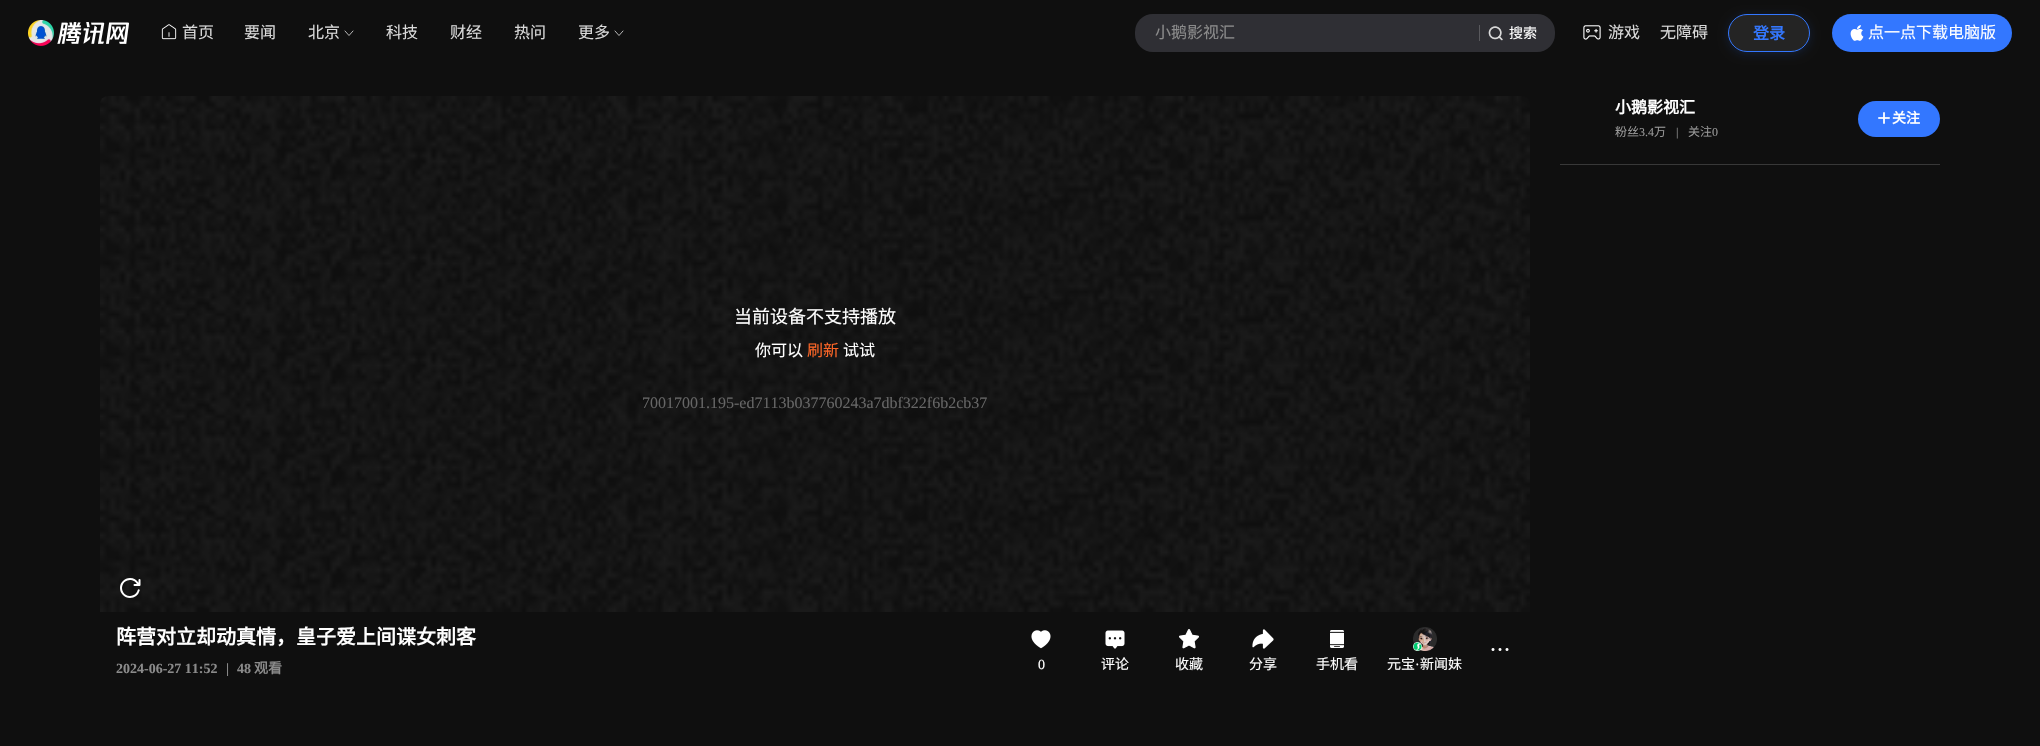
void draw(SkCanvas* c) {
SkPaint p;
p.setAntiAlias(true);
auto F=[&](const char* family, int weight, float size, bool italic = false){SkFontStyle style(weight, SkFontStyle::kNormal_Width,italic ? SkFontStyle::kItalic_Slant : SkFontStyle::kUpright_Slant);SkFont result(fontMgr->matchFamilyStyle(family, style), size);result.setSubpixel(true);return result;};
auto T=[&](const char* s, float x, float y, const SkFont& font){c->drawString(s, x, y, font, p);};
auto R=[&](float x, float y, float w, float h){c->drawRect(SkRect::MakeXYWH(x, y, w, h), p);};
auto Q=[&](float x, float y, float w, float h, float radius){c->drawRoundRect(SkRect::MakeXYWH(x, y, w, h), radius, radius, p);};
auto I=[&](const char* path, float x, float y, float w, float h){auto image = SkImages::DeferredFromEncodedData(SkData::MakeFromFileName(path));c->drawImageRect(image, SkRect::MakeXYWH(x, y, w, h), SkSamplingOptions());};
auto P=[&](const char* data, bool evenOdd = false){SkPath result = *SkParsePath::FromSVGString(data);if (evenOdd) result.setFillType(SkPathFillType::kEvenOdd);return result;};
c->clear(0xff0f0f0f);
I("1.png",28,20,101,26);
I("2.png",161,24,16,16);
auto f1 = F("Noto Sans CJK SC",400,16);
p.setColor(0xffd9d9d9);
T("首页",182,38,f1);
T("要闻",244,38,f1);
T("北京",308,38,f1);
p.setStroke(true);
p.setStrokeWidth(.7);
p.setStrokeCap(SkPaint::kRound_Cap);
p.setStrokeJoin(SkPaint::kRound_Join);
p.setColor(0xffffffff);
c->drawPath(P("M353 31l-4 4.5l-4-4.5"),p);
p.setStroke(false);
p.setColor(0xffd9d9d9);
T("科技",386,38,f1);
T("财经",450,38,f1);
T("热问",514,38,f1);
T("更多",578,38,f1);
p.setStroke(true);
p.setColor(0xffffffff);
c->drawPath(P("M623 31l-4 4.5l-4-4.5"),p);
p.setStroke(false);
p.setColor(0xff2f2f34);
Q(1135,14,420,38,18);
p.setColor(0xff8b8b8b);
T("小鹅影视汇",1155,38,f1);
p.setColor(0xff59595d);
R(1479,25,1,16);
I("3.png",1488,26,15,15);
auto f2 = F("Noto Sans CJK SC",400,14);
p.setColor(0xffffffff);
T("搜索",1509,38,f2);
I("4.png",1583,25,18,15);
p.setColor(0xffd9d9d9);
T("游戏",1608,38,f1);
T("无障碍",1660,38,f1);
c->save();
c->clipPath(P("M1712 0h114v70h-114zm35 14h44c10.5 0 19 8.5 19 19c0 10.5-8.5 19-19 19h-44c-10.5 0-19-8.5-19-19c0-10.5 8.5-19 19-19z",true),true);
p.setColor(0x293377ff);
p.setMaskFilter(SkMaskFilter::MakeBlur(kNormal_SkBlurStyle, 5));
c->drawRoundRect(SkRect::MakeXYWH(1728,16,82,38),19,19,p);
p.setMaskFilter(nullptr);
c->restore();
p.setColor(0x1ad9d9d9);
c->drawRoundRect(SkRect::MakeXYWH(1728.5,14.5,81,37),18.5,18.5,p);
p.setStroke(true);
p.setStrokeWidth(1);
p.setStrokeCap(SkPaint::kButt_Cap);
p.setStrokeJoin(SkPaint::kMiter_Join);
p.setColor(0xff3377ff);
c->drawRoundRect(SkRect::MakeXYWH(1728.5,14.5,81,37),18.5,18.5,p);
auto f3 = F("Noto Sans CJK SC",700,16);
p.setStroke(false);
T("登录",1753,39,f3);
Q(1832,14,180,38,19);
I("5.png",1850,25,14,16);
p.setColor(0xffffffff);
T("点一点下载电脑版",1868,38,f1);
T("小鹅影视汇",1615,113,f3);
auto f4 = F("Noto Sans CJK SC",400,12);
p.setColor(0xff999999);
T("粉丝",1615,136,f4);
auto f5 = F("Liberation Serif",400,12);
T("3.4",1639,136,f5);
T("万",1654,136,f4);
T("|",1676,136,f5);
T("关注",1688,136,f4);
T("0",1712,136,f5);
p.setColor(0xff3377ff);
Q(1858,101,82,36,18);
I("6.png",1878,112,12,12);
auto f6 = F("Noto Sans CJK SC",700,14);
p.setColor(0xffffffff);
T("关注",1892,123,f6);
p.setColor(0xff383838);
R(1560,164,380,1);
I("7.png",100,96,1430,516);
auto f7 = F("Noto Sans CJK SC",400,18);
p.setColor(0xffffffff);
T("当前设备不支持播放",734,323,f7);
T("你可以",755,356,f1);
p.setColor(0xfffc6526);
T("刷新",807,356,f1);
p.setColor(0xffffffff);
T("试试",843,356,f1);
auto f8 = F("Liberation Serif",400,16);
p.setColor(0xff666666);
T("70017001.195-ed7113b037760243a7dbf322f6b2cb37",642,408,f8);
auto f9 = F("Noto Sans CJK SC",700,20);
p.setColor(0xffffffff);
T("阵营对立却动真情，皇子爱上间谍女刺客",116,644,f9);
auto f10 = F("Liberation Serif",700,14);
p.setColor(0xff8b8b8b);
T("2024-06-27 11:52",116,673,f10);
T("|",226,673,f10);
T("48",237,673,f10);
T("观看",254,673,f6);
I("8.png",1491,648,18,3);
I("9.png",1031,630,20,19);
auto f11 = F("Liberation Serif",400,14);
p.setColor(0xffffffff);
T("0",1038,669,f11);
I("10.png",1105,630,20,19);
T("评论",1101,669,f2);
I("11.png",1179,629,20,20);
T("收藏",1175,669,f2);
I("12.png",1252,629,22,20);
T("分享",1249,669,f2);
I("13.png",1330,630,14,18);
T("手机看",1316,669,f2);
I("14.png",1413,627,24,24);
I("15.png",1413,642,9,9);
T("元宝",1387,669,f2);
T("·",1415,669,f11);
T("新闻妹",1420,669,f2);
}
